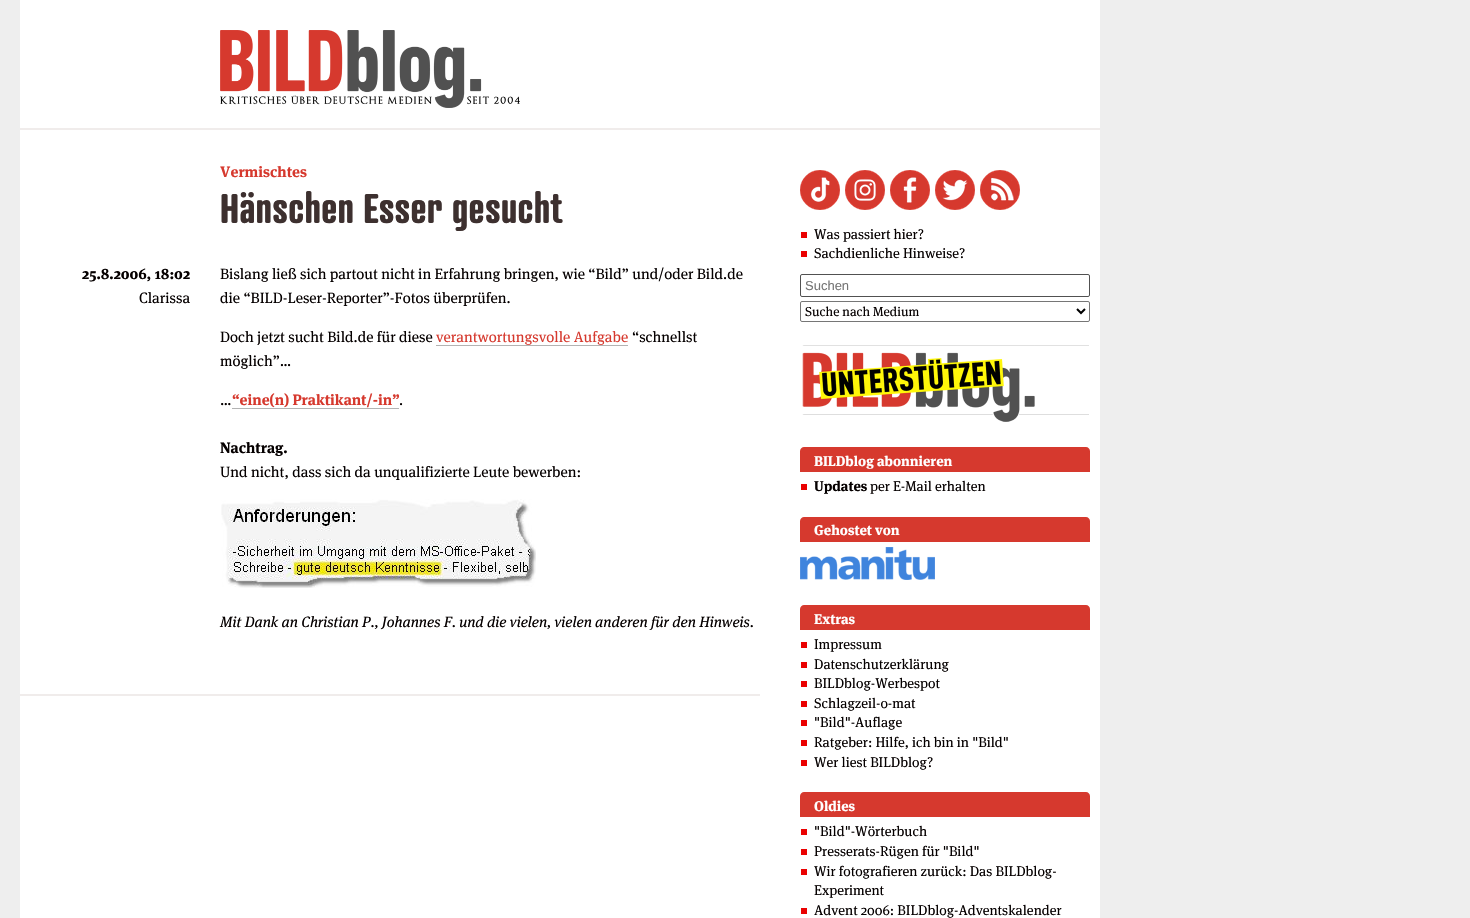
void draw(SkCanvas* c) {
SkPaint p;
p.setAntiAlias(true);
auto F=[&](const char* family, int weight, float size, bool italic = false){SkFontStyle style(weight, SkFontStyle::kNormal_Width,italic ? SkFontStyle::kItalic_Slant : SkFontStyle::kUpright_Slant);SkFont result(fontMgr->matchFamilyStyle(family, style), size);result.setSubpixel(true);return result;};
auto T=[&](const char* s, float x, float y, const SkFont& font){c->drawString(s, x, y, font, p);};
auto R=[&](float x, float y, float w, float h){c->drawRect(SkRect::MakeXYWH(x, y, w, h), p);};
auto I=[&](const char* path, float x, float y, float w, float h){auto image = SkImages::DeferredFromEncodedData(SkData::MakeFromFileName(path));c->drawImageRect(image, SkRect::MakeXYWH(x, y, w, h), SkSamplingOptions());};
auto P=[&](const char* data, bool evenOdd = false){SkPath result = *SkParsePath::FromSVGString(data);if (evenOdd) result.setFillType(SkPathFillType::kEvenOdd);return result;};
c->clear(0xffeeeeee);
p.setColor(0xffffffff);
R(20,0,1080,918);
I("1.png",220,30,300,78);
p.setColor(0xfff0eceb);
R(20,128,1080,2);
auto f1 = F("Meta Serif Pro",700,15);
p.setColor(0xffd6392e);
T("Vermischtes",220,177,f1);
auto f2 = F("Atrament",700,40);
p.setColor(0xff3d302f);
T("Hänschen Esser gesucht",220,223,f2);
p.setColor(0xfff0eceb);
R(20,694,740,2);
p.setColor(0xff050000);
T("25.8.2006, 18:02",82,279,f1);
auto f3 = F("Meta Serif Pro",400,15);
T("Clarissa",139,303,f3);
T("Bislang ließ sich partout nicht in Erfahrung bringen, wie “Bild” und/oder Bild.de",220,279,f3);
T("die “BILD-Leser-Reporter”-Fotos überprüfen.",220,303,f3);
T("Doch jetzt sucht Bild.de für diese",220,342,f3);
p.setColor(0xffd6392e);
T("verantwortungsvolle Aufgabe",436,342,f3);
p.setColor(0xffb3b3b3);
R(436,345,192,1);
p.setColor(0xff050000);
T("“schnellst",632,342,f3);
T("möglich”…",220,366,f3);
T("…",220,405,f3);
p.setColor(0xffd6392e);
T("“eine(n) Praktikant/-in”",232,405,f1);
p.setColor(0xffb3b3b3);
R(232,408,167,1);
p.setColor(0xff050000);
T(".",399,405,f3);
T("Nachtrag.",220,453,f1);
T("Und nicht, dass sich da unqualifizierte Leute bewerben:",220,477,f3);
I("2.png",221,499,315,89);
auto f4 = F("Meta Serif Pro",400,15,true);
T("Mit Dank an Christian P., Johannes F. und die vielen, vielen anderen für den Hinweis.",220,627,f4);
I("3.png",800,170,40,40);
I("4.png",845,170,40,40);
I("5.png",890,170,40,40);
I("6.png",935,170,40,40);
I("7.png",980,170,40,40);
p.setColor(0xffea0101);
R(801,232,6,6);
auto f5 = F("Meta Serif Pro",400,14);
p.setColor(0xff050000);
T("Was passiert hier?",814,239,f5);
p.setColor(0xffea0101);
R(801,251,6,6);
p.setColor(0xff050000);
T("Sachdienliche Hinweise?",814,258,f5);
p.setStroke(true);
p.setStrokeWidth(1);
p.setColor(0xff515151);
c->drawRoundRect(SkRect::MakeXYWH(800.5,274.5,289,22),1.5,1.5,p);
auto f6 = F("Liberation Sans",400,13);
p.setStroke(false);
p.setColor(0xff757575);
T("Suchen",805,290,f6);
p.setStroke(true);
p.setColor(0xff767676);
c->drawRoundRect(SkRect::MakeXYWH(800.5,301.5,289,20),1.5,1.5,p);
p.setStrokeWidth(2);
p.setColor(0xff000000);
c->drawPath(P("M1077 309l4 4l4-4"),p);
auto f7 = F("Meta Serif Pro",400,13);
p.setStroke(false);
p.setColor(0xff050000);
T("Suche nach Medium",805,316,f7);
I("8.png",802,345,287,77);
p.setColor(0xffd6392e);
c->drawPath(P("M804 447h282c2 0 4 2 4 4v21h-290v-21c0-2 2-4 4-4z"),p);
auto f8 = F("Meta Serif Pro",700,14);
p.setColor(0xffffffff);
T("BILDblog abonnieren",814,466,f8);
p.setColor(0xffea0101);
R(801,484,6,6);
p.setColor(0xff050000);
T("Updates",814,491,f8);
T("per E-Mail erhalten",870,491,f5);
p.setColor(0xffd6392e);
c->drawPath(P("M804 517h282c2 0 4 2 4 4v21h-290v-21c0-2 2-4 4-4z"),p);
p.setColor(0xffffffff);
T("Gehostet von",814,535,f8);
I("9.png",800,547,135,33);
p.setColor(0xffd6392e);
c->drawPath(P("M804 605h282c2 0 4 2 4 4v21h-290v-21c0-2 2-4 4-4z"),p);
p.setColor(0xffffffff);
T("Extras",814,624,f8);
p.setColor(0xffea0101);
R(801,642,6,6);
p.setColor(0xff050000);
T("Impressum",814,649,f5);
p.setColor(0xffea0101);
R(801,662,6,6);
p.setColor(0xff050000);
T("Datenschutzerklärung",814,669,f5);
p.setColor(0xffea0101);
R(801,681,6,6);
p.setColor(0xff050000);
T("BILDblog-Werbespot",814,688,f5);
p.setColor(0xffea0101);
R(801,701,6,6);
p.setColor(0xff050000);
T("Schlagzeil-o-mat",814,708,f5);
p.setColor(0xffea0101);
R(801,720,6,6);
p.setColor(0xff050000);
T("\"Bild\"-Auflage",814,727,f5);
p.setColor(0xffea0101);
R(801,740,6,6);
p.setColor(0xff050000);
T("Ratgeber: Hilfe, ich bin in \"Bild\"",814,747,f5);
p.setColor(0xffea0101);
R(801,760,6,6);
p.setColor(0xff050000);
T("Wer liest BILDblog?",814,767,f5);
p.setColor(0xffd6392e);
c->drawPath(P("M804 792h282c2 0 4 2 4 4v21h-290v-21c0-2 2-4 4-4z"),p);
p.setColor(0xffffffff);
T("Oldies",814,811,f8);
p.setColor(0xffea0101);
R(801,829,6,6);
p.setColor(0xff050000);
T("\"Bild\"-Wörterbuch",814,836,f5);
p.setColor(0xffea0101);
R(801,849,6,6);
p.setColor(0xff050000);
T("Presserats-Rügen für \"Bild\"",814,856,f5);
p.setColor(0xffea0101);
R(801,869,6,6);
p.setColor(0xff050000);
T("Wir fotografieren zurück: Das BILDblog-",814,876,f5);
T("Experiment",814,895,f5);
p.setColor(0xffea0101);
R(801,908,6,6);
p.setColor(0xff050000);
T("Advent 2006: BILDblog-Adventskalender",814,915,f5);
}
